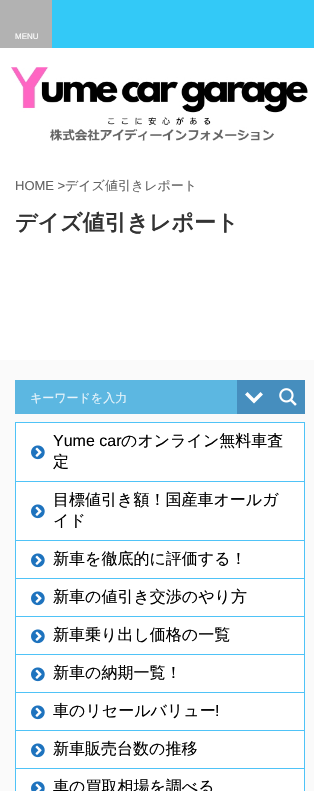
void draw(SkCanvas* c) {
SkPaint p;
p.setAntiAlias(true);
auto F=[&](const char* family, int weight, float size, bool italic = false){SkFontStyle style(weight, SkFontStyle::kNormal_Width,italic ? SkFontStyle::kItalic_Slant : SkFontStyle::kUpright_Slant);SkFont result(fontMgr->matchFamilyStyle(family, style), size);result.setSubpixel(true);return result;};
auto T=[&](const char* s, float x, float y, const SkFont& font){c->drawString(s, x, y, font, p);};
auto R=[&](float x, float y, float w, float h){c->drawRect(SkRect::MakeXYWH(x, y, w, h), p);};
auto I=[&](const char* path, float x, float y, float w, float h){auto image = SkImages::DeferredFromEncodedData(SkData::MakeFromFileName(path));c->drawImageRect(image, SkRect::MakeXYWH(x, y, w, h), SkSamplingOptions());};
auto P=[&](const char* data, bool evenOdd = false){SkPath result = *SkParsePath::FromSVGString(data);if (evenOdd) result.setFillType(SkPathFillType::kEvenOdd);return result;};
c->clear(0xfffafafa);
p.setColor(0xffffffff);
R(0,48,314,312);
p.setColor(0xff33c9f7);
R(52,0,262,48);
p.setColor(0xffb2b2b2);
R(0,0,52,48);
auto f1 = F("Liberation Sans",400,8);
p.setColor(0xffffffff);
T("MENU",15,39,f1);
I("1.png",11,67,297,74);
auto f2 = F("Liberation Sans",400,13);
p.setColor(0xff616161);
T("HOME >",15,190,f2);
auto f3 = F("WenQuanYi Zen Hei",500,13);
T("デイズ値引きレポート",65,190,f3);
auto f4 = F("WenQuanYi Zen Hei",700,22);
p.setColor(0xff333333);
T("デイズ値引きレポート",15,230,f4);
p.setColor(0xff5cb7e1);
R(15,380,222,34);
p.setColor(0xff468ebe);
R(237,380,68,34);
p.setColor(0xffffffff);
c->drawPath(P("M260.5 392l2.5 2.5l-9 9l-9-9l2.5-2.5l6.5 6.5z"),p);
auto f5 = F("WenQuanYi Zen Hei",500,12);
p.setColor(0xffe7f4fb);
T("キーワードを入力",30,402,f5);
I("2.png",279,388,18,18);
p.setColor(0xff4fc3f7);
R(15,422,290,1);
R(304,422,1,59);
R(15,422,1,59);
p.setColor(0xffffffff);
R(16,423,288,58);
auto f6 = F("Liberation Sans",400,16);
p.setColor(0xff000000);
T("Yume car",53,446,f6);
auto f7 = F("WenQuanYi Zen Hei",500,16);
T("のオンライン無料車査",121,446,f7);
I("3.png",31,445,14,15);
T("定",53,467,f7);
p.setColor(0xff4fc3f7);
R(15,481,290,1);
R(304,481,1,59);
R(15,481,1,59);
p.setColor(0xffffffff);
R(16,482,288,58);
p.setColor(0xff000000);
T("目標値引き額！国産車オールガ",53,505,f7);
I("3.png",31,504,14,15);
T("イド",53,526,f7);
p.setColor(0xff4fc3f7);
R(15,540,290,1);
R(304,540,1,38);
R(15,540,1,38);
p.setColor(0xffffffff);
R(16,541,288,37);
I("3.png",31,553,14,15);
p.setColor(0xff000000);
T("新車を徹底的に評価する！",53,564,f7);
p.setColor(0xff4fc3f7);
R(15,578,290,1);
R(304,578,1,38);
R(15,578,1,38);
p.setColor(0xffffffff);
R(16,579,288,37);
I("3.png",31,591,14,15);
p.setColor(0xff000000);
T("新車の値引き交渉のやり方",53,602,f7);
p.setColor(0xff4fc3f7);
R(15,616,290,1);
R(304,616,1,38);
R(15,616,1,38);
p.setColor(0xffffffff);
R(16,617,288,37);
I("3.png",31,629,14,15);
p.setColor(0xff000000);
T("新車乗り出し価格の一覧",53,640,f7);
p.setColor(0xff4fc3f7);
R(15,654,290,1);
R(304,654,1,38);
R(15,654,1,38);
p.setColor(0xffffffff);
R(16,655,288,37);
I("3.png",31,667,14,15);
p.setColor(0xff000000);
T("新車の納期一覧！",53,678,f7);
p.setColor(0xff4fc3f7);
R(15,692,290,1);
R(304,692,1,38);
R(15,692,1,38);
p.setColor(0xffffffff);
R(16,693,288,37);
I("3.png",31,705,14,15);
p.setColor(0xff000000);
T("車のリセールバリュー",53,716,f7);
T("!",215,716,f6);
p.setColor(0xff4fc3f7);
R(15,730,290,1);
R(304,730,1,38);
R(15,730,1,38);
p.setColor(0xffffffff);
R(16,731,288,37);
I("3.png",31,743,14,15);
p.setColor(0xff000000);
T("新車販売台数の推移",53,754,f7);
p.setColor(0xff4fc3f7);
R(15,768,290,1);
R(304,768,1,23);
R(15,768,1,23);
p.setColor(0xffffffff);
R(16,769,288,22);
I("4.png",31,781,14,10);
p.setColor(0xff000000);
T("車の買取相場を調べる",53,792,f7);
}
